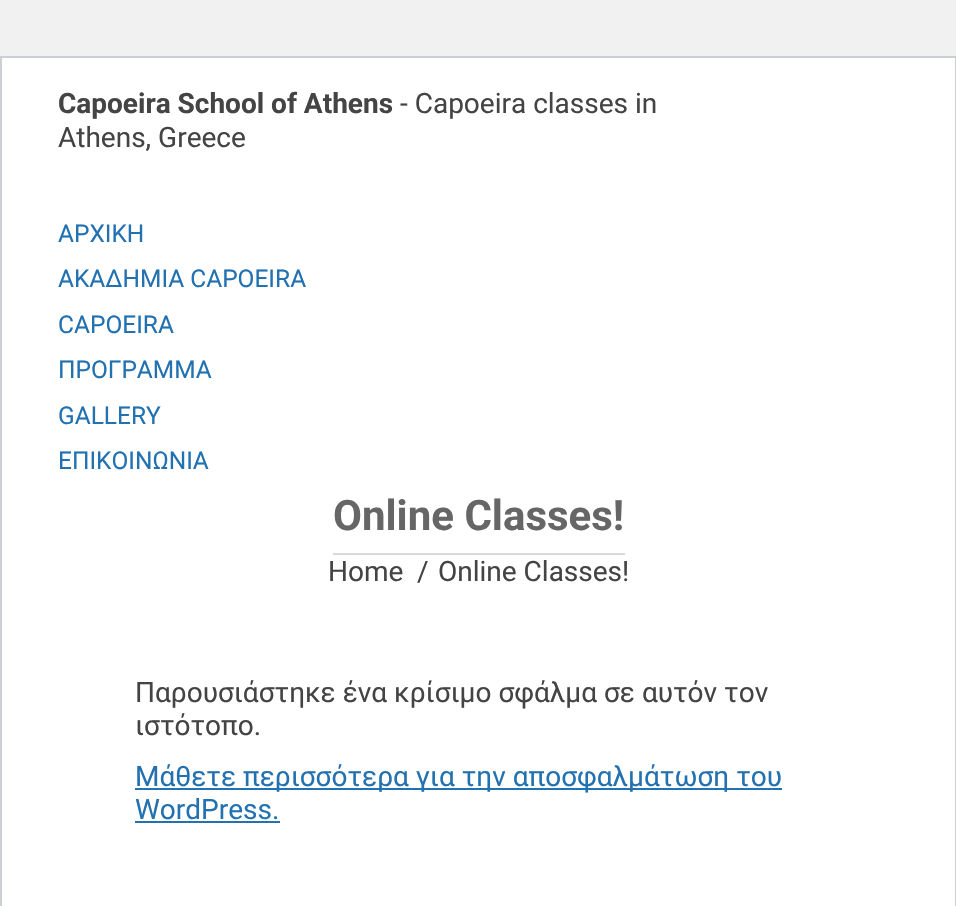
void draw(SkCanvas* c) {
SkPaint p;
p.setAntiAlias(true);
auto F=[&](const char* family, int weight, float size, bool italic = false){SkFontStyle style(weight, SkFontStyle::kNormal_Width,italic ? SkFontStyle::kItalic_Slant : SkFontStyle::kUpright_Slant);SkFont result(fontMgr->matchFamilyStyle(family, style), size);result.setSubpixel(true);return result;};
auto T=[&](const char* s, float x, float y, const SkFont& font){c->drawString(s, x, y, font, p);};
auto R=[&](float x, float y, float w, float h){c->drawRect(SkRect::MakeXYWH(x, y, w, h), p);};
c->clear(0xfff1f1f1);
p.setColor(0xffffffff);
c->drawRect(SkRect::MakeXYWH(1,57,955,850),p);
p.setStroke(true);
p.setStrokeWidth(2);
p.setColor(0xffccd0d4);
c->drawRect(SkRect::MakeXYWH(1,57,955,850),p);
auto f1 = F("Roboto",700,28);
p.setStroke(false);
p.setColor(0xff444444);
T("Capoeira School of Athens",58,113,f1);
auto f2 = F("Roboto",400,28);
T("- Capoeira classes in",400,113,f2);
T("Athens, Greece",58,147,f2);
auto f3 = F("Roboto",400,24.5);
p.setColor(0xff2271b1);
T("ΑΡΧΙΚΗ",58,242,f3);
T("ΑΚΑΔΗΜΙΑ CAPOEIRA",58,287,f3);
T("CAPOEIRA",58,333,f3);
T("ΠΡΟΓΡΑΜΜΑ",58,378,f3);
T("GALLERY",58,424,f3);
T("ΕΠΙΚΟΙΝΩΝΙΑ",58,469,f3);
p.setColor(0xffdadada);
R(333,553,292,2);
auto f4 = F("Roboto",700,42);
p.setColor(0xff666666);
T("Online Classes!",333,530,f4);
p.setColor(0xff444444);
T("Home",328,581,f2);
T("/",417,581,f2);
T("Online Classes!",438,581,f2);
T("Παρουσιάστηκε ένα κρίσιμο σφάλμα σε αυτόν τον",135,702,f2);
T("ιστότοπο.",135,735,f2);
p.setColor(0xff2271b1);
R(135,788,647,2);
T("Μάθετε περισσότερα για την αποσφαλμάτωση του",135,786,f2);
T("WordPress.",135,819,f2);
R(135,821,145,2);
}
